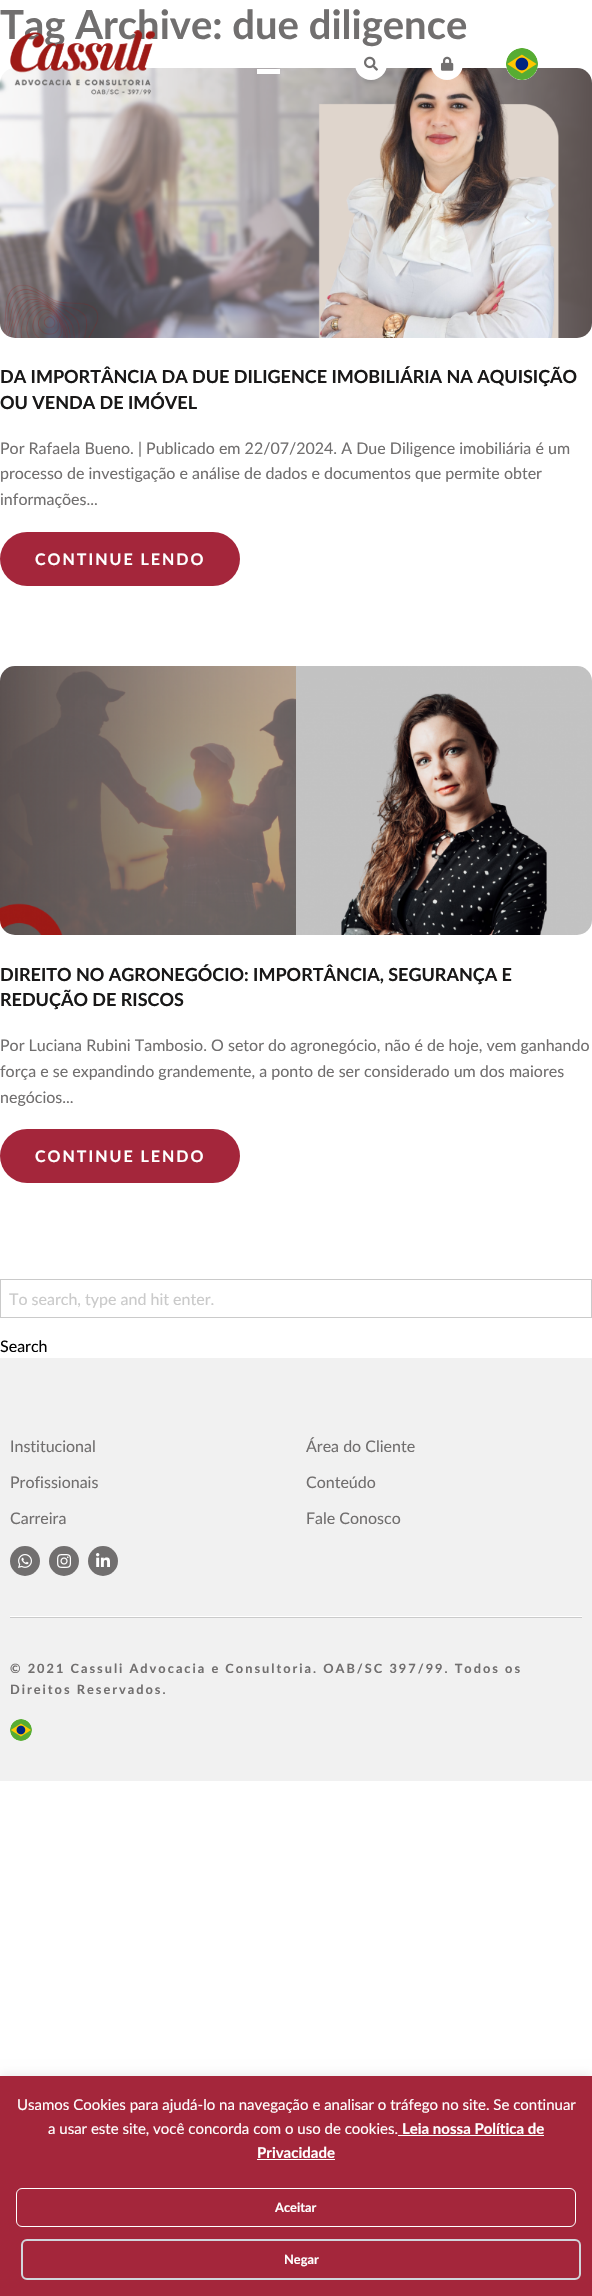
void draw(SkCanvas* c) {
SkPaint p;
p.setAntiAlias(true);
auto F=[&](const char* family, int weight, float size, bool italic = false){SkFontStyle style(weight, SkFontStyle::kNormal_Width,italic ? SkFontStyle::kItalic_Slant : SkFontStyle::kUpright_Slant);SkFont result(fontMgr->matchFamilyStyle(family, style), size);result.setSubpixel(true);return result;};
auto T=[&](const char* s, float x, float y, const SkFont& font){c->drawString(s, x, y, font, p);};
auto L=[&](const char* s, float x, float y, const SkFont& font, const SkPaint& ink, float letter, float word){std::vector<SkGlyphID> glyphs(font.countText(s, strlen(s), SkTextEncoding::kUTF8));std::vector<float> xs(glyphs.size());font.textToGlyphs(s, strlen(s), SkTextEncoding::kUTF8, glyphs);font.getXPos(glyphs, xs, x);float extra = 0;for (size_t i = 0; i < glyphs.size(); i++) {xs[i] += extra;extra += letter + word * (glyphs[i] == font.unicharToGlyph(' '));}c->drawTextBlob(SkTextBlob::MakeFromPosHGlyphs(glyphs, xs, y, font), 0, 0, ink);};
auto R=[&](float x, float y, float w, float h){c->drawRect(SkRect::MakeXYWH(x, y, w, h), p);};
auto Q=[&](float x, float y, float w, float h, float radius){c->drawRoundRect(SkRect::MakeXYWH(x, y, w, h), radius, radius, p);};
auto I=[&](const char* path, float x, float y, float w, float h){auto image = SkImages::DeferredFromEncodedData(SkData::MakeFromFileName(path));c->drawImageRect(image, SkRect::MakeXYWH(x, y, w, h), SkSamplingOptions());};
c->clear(0xffffffff);
auto f1 = F("Lato",700,40);
p.setColor(0xff716f6f);
T("Tag Archive: due diligence",0,39,f1);
I("1.png",0,68,592,270);
auto f2 = F("Lato",700,18);
p.setColor(0xff191818);
T("DA IMPORTÂNCIA DA DUE DILIGENCE IMOBILIÁRIA NA AQUISIÇÃO",0,383,f2);
T("OU VENDA DE IMÓVEL",0,409,f2);
auto f3 = F("Lato",400,16);
p.setColor(0xff716f6f);
T("Por Rafaela Bueno. | Publicado em 22/07/2024. A Due Diligence imobiliária é um",0,454,f3);
T("processo de investigação e análise de dados e documentos que permite obter",0,479,f3);
T("informações...",0,505,f3);
p.setColor(0xffa4263b);
Q(0,532,240,54,27);
auto f4 = F("Lato",700,16);
p.setColor(0xffffffff);
L("CONTINUE LENDO",35,565,f4,p,2,0);
I("2.png",0,666,592,269);
p.setColor(0xff191818);
T("DIREITO NO AGRONEGÓCIO: IMPORTÂNCIA, SEGURANÇA E",0,981,f2);
T("REDUÇÃO DE RISCOS",0,1006,f2);
p.setColor(0xff716f6f);
T("Por Luciana Rubini Tambosio. O setor do agronegócio, não é de hoje, vem ganhando",0,1051,f3);
T("força e se expandindo grandemente, a ponto de ser considerado um dos maiores",0,1077,f3);
T("negócios...",0,1103,f3);
p.setColor(0xffa4263b);
Q(0,1129,240,54,27);
p.setColor(0xffffffff);
L("CONTINUE LENDO",35,1162,f4,p,2,0);
p.setStroke(true);
p.setStrokeWidth(1);
p.setColor(0xffcacaca);
c->drawRect(SkRect::MakeXYWH(.5,1279.5,591,38),p);
p.setStroke(false);
T("To search, type and hit enter.",9,1305,f3);
p.setColor(0xff000000);
T("Search",0,1352,f3);
I("3.png",10,30,145,65);
p.setColor(0xffffffff);
R(257,69,23,5);
c->drawCircle(371,64,16,p);
I("4.png",364,56,14,15);
c->drawCircle(447,64,16,p);
I("5.png",441,56,13,15);
c->drawCircle(522,64,16,p);
I("6.png",506,48,32,32);
p.setColor(0xfff1f1f1);
R(0,1358,592,423);
p.setColor(0xff716f6f);
T("Institucional",10,1452,f3);
T("Profissionais",10,1488,f3);
T("Carreira",10,1524,f3);
c->drawCircle(25,1561,15,p);
I("7.png",18,1554,14,14);
c->drawCircle(64,1561,15,p);
I("8.png",57,1554,14,14);
c->drawCircle(103,1561,15,p);
I("9.png",96,1553,14,14);
T("Área do Cliente",306,1452,f3);
T("Conteúdo",306,1488,f3);
T("Fale Conosco",306,1524,f3);
p.setColor(0xffffffff);
R(10,1616,572,1);
p.setColor(0xffcacaca);
R(10,1617,572,1);
auto f5 = F("Lato",700,12.8);
p.setColor(0xff716f6f);
L("© 2021 Cassuli Advocacia e Consultoria. OAB/SC 397/99. Todos os",10,1673,f5,p,2,0);
L("Direitos Reservados.",10,1694,f5,p,2,0);
p.setColor(0xffffffff);
c->drawCircle(21,1730,11,p);
I("10.png",10,1719,22,22);
p.setColor(0x14000000);
p.setMaskFilter(SkMaskFilter::MakeBlur(kNormal_SkBlurStyle, 5));
c->drawRect(SkRect::MakeXYWH(0,2074,592,220),p);
p.setMaskFilter(nullptr);
p.setColor(0xffa4263b);
R(0,2076,592,220);
auto f6 = F("Lato",400,15);
p.setColor(0xffffffff);
T("Usamos Cookies para ajudá-lo na navegação e analisar o tráfego no site. Se continuar",17,2110,f6);
T("a usar este site, você concorda com o uso de cookies.",48,2134,f6);
auto f7 = F("Lato",700,15);
T("Leia nossa Política de",402,2134,f7);
R(398,2135,146,1);
T("Privacidade",257,2158,f7);
R(257,2159,78,1);
p.setStroke(true);
c->drawRoundRect(SkRect::MakeXYWH(16.5,2188.5,559,38),5.5,5.5,p);
p.setStroke(false);
T("Aceitar",275,2212,f5);
p.setStroke(true);
p.setStrokeWidth(2);
p.setColor(0xffd1d5db);
c->drawRoundRect(SkRect::MakeXYWH(22,2240,558,39),5,5,p);
p.setStroke(false);
p.setColor(0xffffffff);
T("Negar",284,2264,f5);
}
